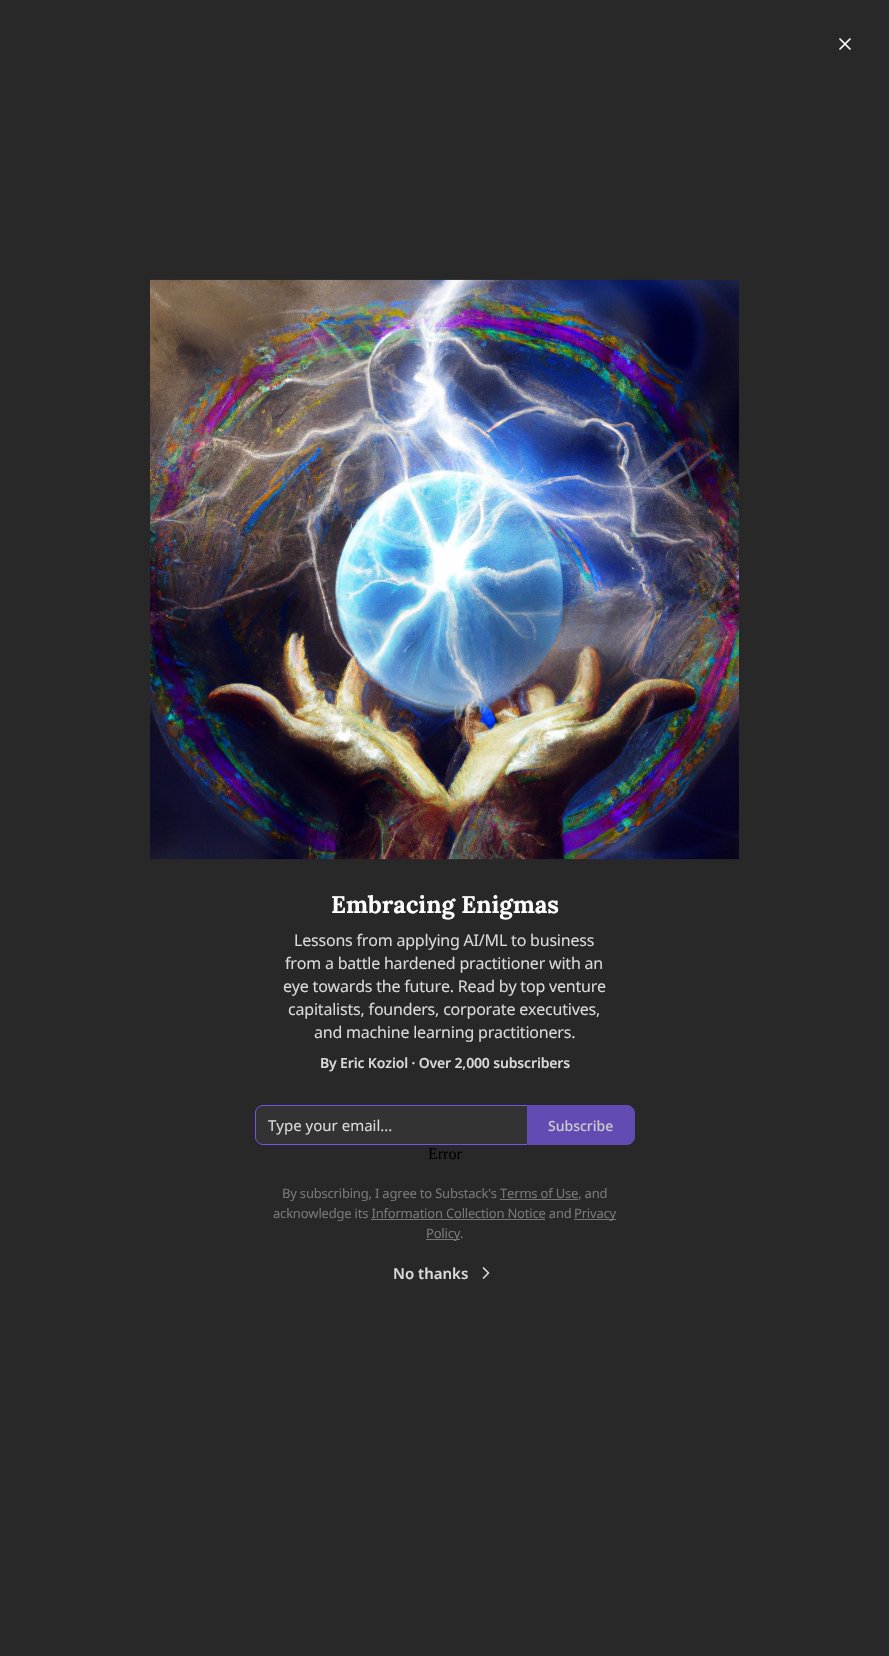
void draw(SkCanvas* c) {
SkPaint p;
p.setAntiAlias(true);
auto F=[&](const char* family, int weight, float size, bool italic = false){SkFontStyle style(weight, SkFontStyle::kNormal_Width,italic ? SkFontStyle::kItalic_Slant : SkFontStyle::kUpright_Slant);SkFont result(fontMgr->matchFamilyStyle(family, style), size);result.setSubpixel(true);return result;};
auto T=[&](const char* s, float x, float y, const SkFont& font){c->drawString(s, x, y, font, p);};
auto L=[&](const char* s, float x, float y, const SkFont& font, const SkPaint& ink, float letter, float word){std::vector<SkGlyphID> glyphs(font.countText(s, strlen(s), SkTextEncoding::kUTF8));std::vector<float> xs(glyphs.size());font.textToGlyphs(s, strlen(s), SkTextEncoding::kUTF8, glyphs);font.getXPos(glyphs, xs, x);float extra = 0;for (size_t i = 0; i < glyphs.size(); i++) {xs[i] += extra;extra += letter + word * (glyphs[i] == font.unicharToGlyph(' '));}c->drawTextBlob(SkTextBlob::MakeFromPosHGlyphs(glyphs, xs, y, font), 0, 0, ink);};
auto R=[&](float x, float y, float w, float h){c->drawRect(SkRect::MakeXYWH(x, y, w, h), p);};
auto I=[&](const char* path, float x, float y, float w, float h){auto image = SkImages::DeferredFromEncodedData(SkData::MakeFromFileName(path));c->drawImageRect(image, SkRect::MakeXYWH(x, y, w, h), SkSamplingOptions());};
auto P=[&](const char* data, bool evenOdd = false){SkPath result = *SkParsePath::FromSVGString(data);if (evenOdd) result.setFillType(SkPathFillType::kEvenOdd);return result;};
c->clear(0xff282828);
p.setStroke(true);
p.setStrokeWidth(1.7);
p.setStrokeCap(SkPaint::kRound_Cap);
p.setStrokeJoin(SkPaint::kRound_Join);
p.setColor(0xffffffff);
c->drawPath(P("M850 39l-10 10m0-10l10 10"),p);
I("1.png",150,279,589,581);
auto f1 = F("Lora",700,24);
p.setStroke(false);
T("Embracing Enigmas",331,913,f1);
auto f2 = F("Noto Sans",400,16);
p.setColor(0xffd9d9d9);
L("Lessons from applying AI/ML to business",294,946,f2,p,-.2,0);
L("from a battle hardened practitioner with an",285,969,f2,p,-.2,0);
L("eye towards the future. Read by top venture",283,992,f2,p,-.2,0);
L("capitalists, founders, corporate executives,",288,1015,f2,p,-.2,0);
L("and machine learning practitioners.",314,1038,f2,p,-.2,0);
auto f3 = F("Noto Sans",600,14);
L("By Eric Koziol · Over 2,000 subscribers",320,1068,f3,p,-.15,0);
p.setColor(0xff333333);
c->drawPath(P("M263 1106h264v38h-264c-4 0-7-3-7-7v-24c0-4 3-7 7-7z"),p);
p.setColor(0xff7756e3);
c->drawPath(P("M263 1105h264v40h-264c-4 0-8-4-8-8v-24c0-4 4-8 8-8zm0 1h264v38h-264c-4 0-7-3-7-7v-24c0-4 3-7 7-7z",true),p);
auto f4 = F("Noto Sans",400,15);
p.setColor(0xffd9d9d9);
T("Type your email...",268,1131,f4);
p.setColor(0xff634bb4);
c->drawPath(P("M527.5 1105.5h99.5c4 0 7.5 3.5 7.5 7.5v24c0 4-3.5 7.5-7.5 7.5h-99.5z"),p);
p.setStroke(true);
p.setStrokeWidth(1);
p.setStrokeCap(SkPaint::kButt_Cap);
p.setStrokeJoin(SkPaint::kMiter_Join);
c->drawPath(P("M527.5 1105.5h99.5c4 0 7.5 3.5 7.5 7.5v24c0 4-3.5 7.5-7.5 7.5h-99.5z"),p);
auto f5 = F("Noto Sans",500,14);
p.setStroke(false);
p.setColor(0xffc9c9c9);
T("Subscribe",548,1131,f5);
auto f6 = F("Liberation Serif",400,16);
p.setColor(0xff000000);
T("Error",428,1159,f6);
auto f7 = F("Noto Sans",400,13);
p.setColor(0xff777777);
L("By subscribing, I agree to Substack's Terms of Use, and",282,1198,f7,p,-.2,0);
R(500,1199,78,1);
L("acknowledge its Information Collection Notice and",273,1218,f7,p,-.2,0);
R(574,1219,42,1);
L("Privacy",574,1218,f7,p,-.2,0);
R(371,1219,174,1);
R(426,1239,34,1);
L("Policy.",426,1238,f7,p,-.2,0);
auto f8 = F("Noto Sans",600,15);
p.setColor(0xffd9d9d9);
T("No thanks",393,1279,f8);
p.setStroke(true);
p.setStrokeWidth(1.7);
p.setStrokeCap(SkPaint::kRound_Cap);
p.setStrokeJoin(SkPaint::kRound_Join);
c->drawPath(P("M483.5 1278l5-5l-5-5"),p);
}
